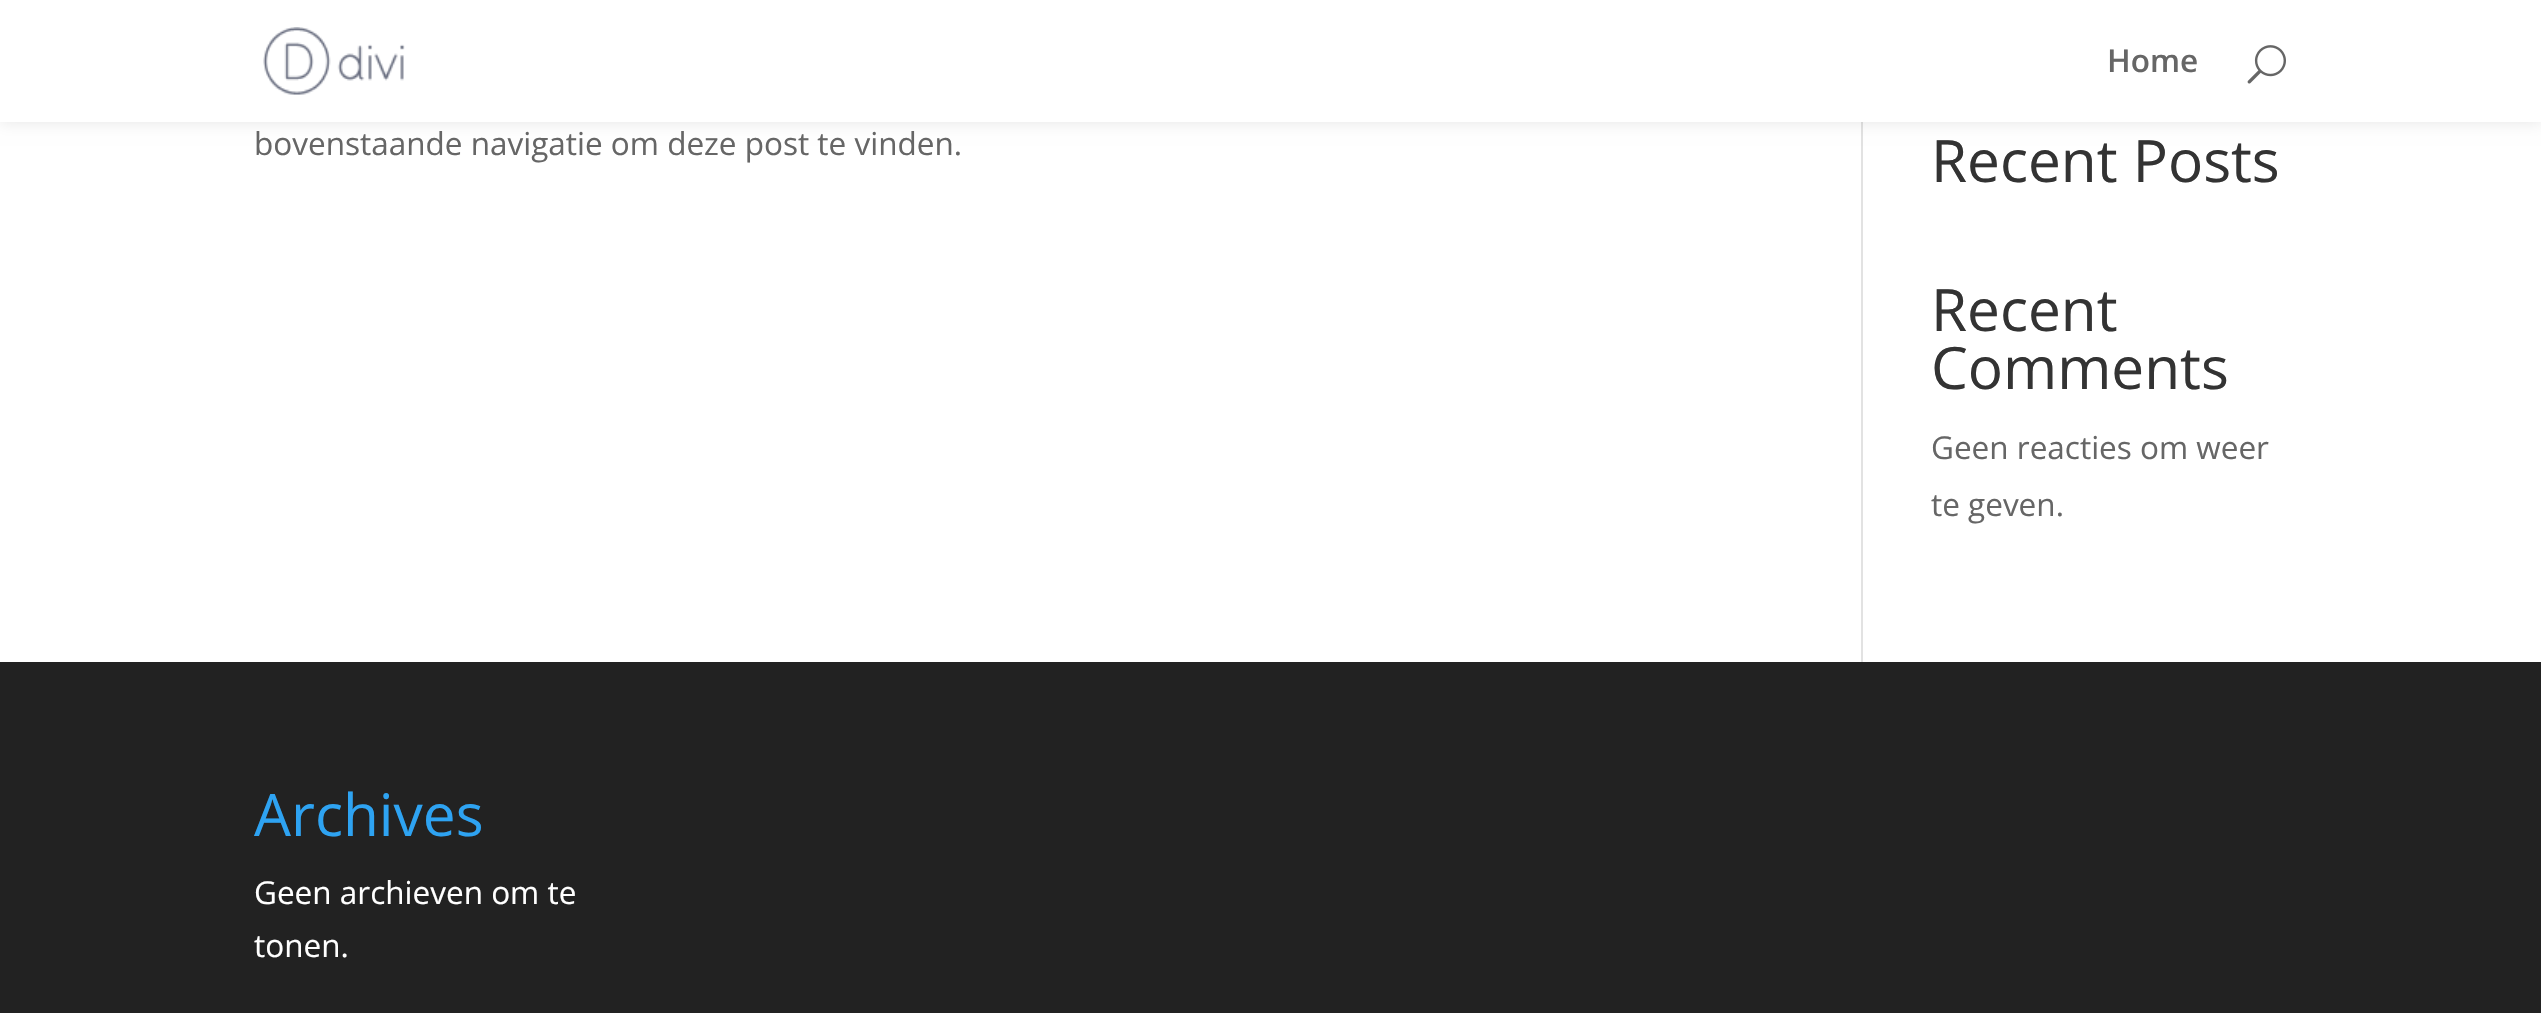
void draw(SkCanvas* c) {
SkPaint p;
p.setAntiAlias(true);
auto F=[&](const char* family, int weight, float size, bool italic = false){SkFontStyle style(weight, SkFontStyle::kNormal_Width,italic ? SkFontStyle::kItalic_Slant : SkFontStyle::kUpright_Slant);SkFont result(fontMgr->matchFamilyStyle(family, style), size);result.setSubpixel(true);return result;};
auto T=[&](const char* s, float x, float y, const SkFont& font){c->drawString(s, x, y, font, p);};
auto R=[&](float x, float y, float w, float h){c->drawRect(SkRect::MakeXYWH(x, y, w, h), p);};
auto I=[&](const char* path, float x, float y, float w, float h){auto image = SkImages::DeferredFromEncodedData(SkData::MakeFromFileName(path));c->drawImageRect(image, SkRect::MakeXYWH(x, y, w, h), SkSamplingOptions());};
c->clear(0xffffffff);
p.setColor(0xffe2e2e2);
R(1861,122,2,540);
p.setColor(0x1a000000);
p.setMaskFilter(SkMaskFilter::MakeBlur(kNormal_SkBlurStyle, 8));
c->drawRect(SkRect::MakeXYWH(0,0,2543,122),p);
p.setMaskFilter(nullptr);
p.setColor(0xffffffff);
R(0,0,2541,122);
I("1.png",263,27,142,68);
auto f1 = F("Open Sans",600,31.5);
p.setColor(0xff666666);
T("Home",2107,72,f1);
I("2.png",2247,45,39,39);
auto f2 = F("Open Sans",400,31.5);
T("bovenstaande navigatie om deze post te vinden.",254,155,f2);
auto f3 = F("Open Sans",400,58.5);
p.setColor(0xff333333);
T("Recent Posts",1931,182,f3);
T("Recent",1931,331,f3);
T("Comments",1931,389,f3);
p.setColor(0xff666666);
T("Geen reacties om weer",1931,459,f2);
T("te geven.",1931,516,f2);
p.setColor(0xff222222);
R(0,662,2541,351);
p.setColor(0xff2ea3f2);
T("Archives",254,836,f3);
p.setColor(0xffffffff);
T("Geen archieven om te",254,904,f2);
T("tonen.",254,957,f2);
}
